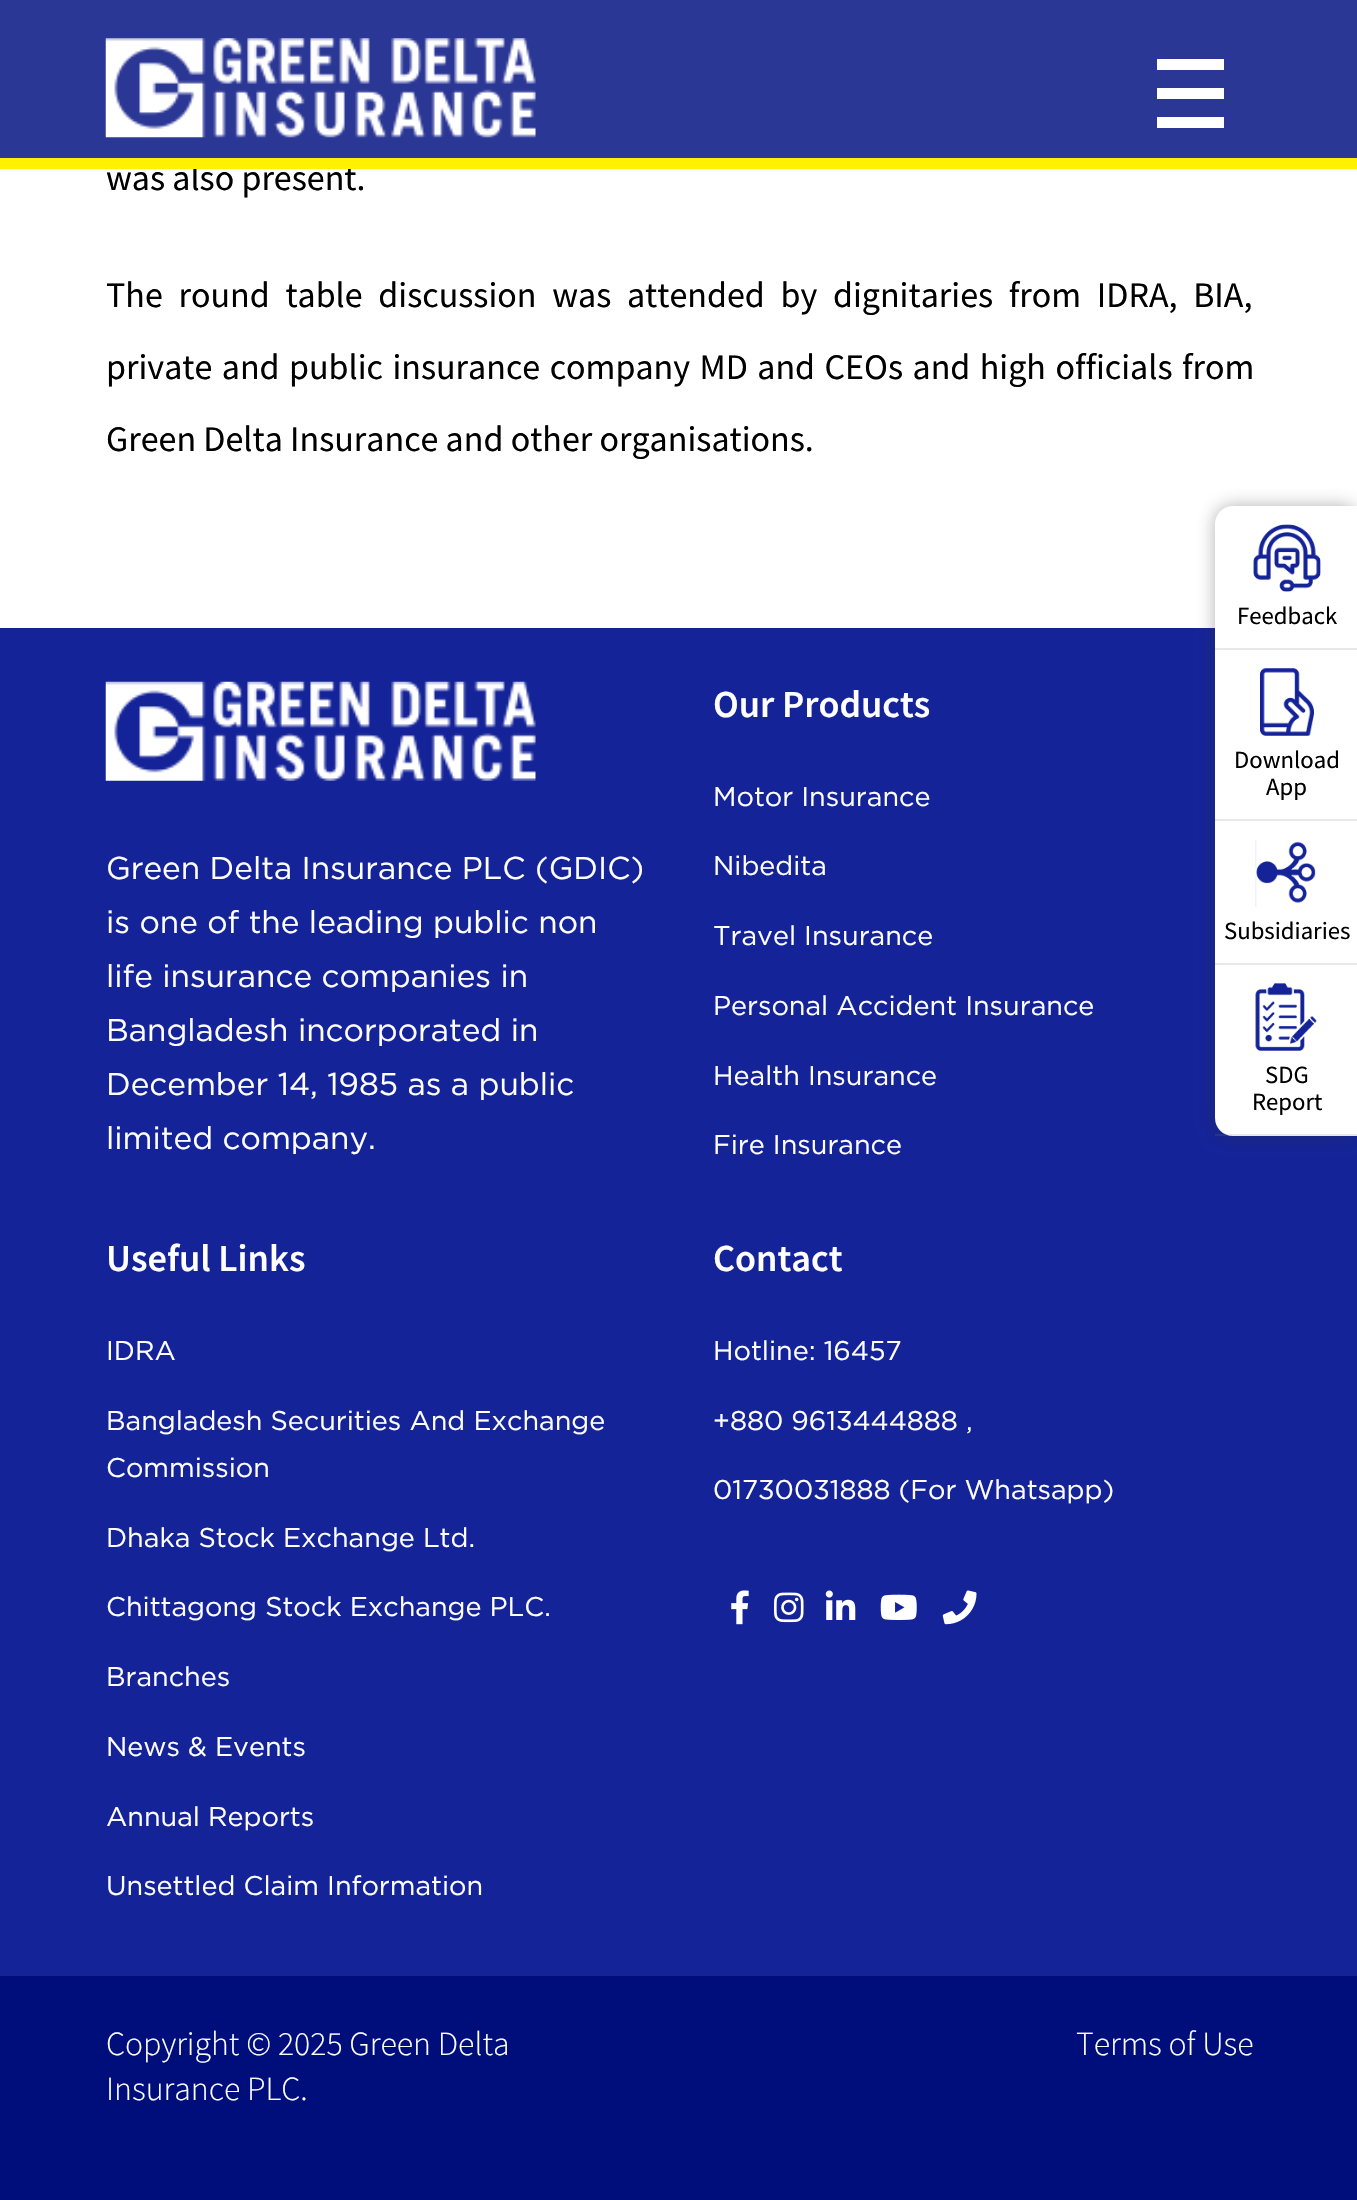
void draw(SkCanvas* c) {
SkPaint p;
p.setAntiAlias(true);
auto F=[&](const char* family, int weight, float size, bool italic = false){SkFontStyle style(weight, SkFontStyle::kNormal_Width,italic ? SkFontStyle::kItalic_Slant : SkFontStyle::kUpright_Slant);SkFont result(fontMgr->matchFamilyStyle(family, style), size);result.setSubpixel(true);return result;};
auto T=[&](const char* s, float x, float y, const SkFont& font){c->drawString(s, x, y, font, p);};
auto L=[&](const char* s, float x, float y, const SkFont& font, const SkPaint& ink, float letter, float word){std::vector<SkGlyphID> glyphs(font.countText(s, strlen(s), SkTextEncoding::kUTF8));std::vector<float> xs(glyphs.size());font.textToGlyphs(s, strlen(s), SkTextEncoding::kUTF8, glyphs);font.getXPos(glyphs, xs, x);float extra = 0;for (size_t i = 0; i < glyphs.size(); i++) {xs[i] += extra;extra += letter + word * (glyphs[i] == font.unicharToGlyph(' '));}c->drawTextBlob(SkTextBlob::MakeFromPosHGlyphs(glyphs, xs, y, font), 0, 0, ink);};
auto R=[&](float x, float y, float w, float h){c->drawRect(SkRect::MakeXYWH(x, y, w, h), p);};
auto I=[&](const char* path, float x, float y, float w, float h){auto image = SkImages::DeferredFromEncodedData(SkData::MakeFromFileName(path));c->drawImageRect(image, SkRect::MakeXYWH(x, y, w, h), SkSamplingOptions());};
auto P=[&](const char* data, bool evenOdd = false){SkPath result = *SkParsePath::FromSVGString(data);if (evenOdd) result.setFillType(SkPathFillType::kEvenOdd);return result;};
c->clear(0xffffffff);
auto f1 = F("Source Sans Pro",400,36);
p.setColor(0xff000000);
T("was also present.",106,190,f1);
L("The round table discussion was attended by dignitaries from IDRA, BIA,",106,307,f1,p,0,8.5);
L("private and public insurance company MD and CEOs and high officials from",106,379,f1,p,0,2.25);
T("Green Delta Insurance and other organisations.",106,451,f1);
p.setColor(0xff142398);
R(0,628,1357,1348);
I("1.png",105,681,431,100);
auto f2 = F("Gotham",400,31.5);
p.setColor(0xffffffff);
T("Green Delta Insurance PLC (GDIC)",106,879,f2);
T("is one of the leading public non",106,933,f2);
T("life insurance companies in",106,987,f2);
T("Bangladesh incorporated in",106,1041,f2);
T("December 14, 1985 as a public",106,1095,f2);
T("limited company.",106,1149,f2);
auto f3 = F("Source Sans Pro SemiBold",600,38.25);
T("Our Products",713,717,f3);
auto f4 = F("Gotham",400,27);
T("Motor Insurance",713,806,f4);
T("Nibedita",713,875,f4);
T("Travel Insurance",713,945,f4);
T("Personal Accident Insurance",713,1015,f4);
T("Health Insurance",713,1085,f4);
T("Fire Insurance",713,1154,f4);
T("Useful Links",106,1271,f3);
T("IDRA",106,1360,f4);
T("Bangladesh Securities And Exchange",106,1430,f4);
T("Commission",106,1477,f4);
T("Dhaka Stock Exchange Ltd.",106,1547,f4);
T("Chittagong Stock Exchange PLC.",106,1616,f4);
T("Branches",106,1686,f4);
T("News & Events",106,1756,f4);
T("Annual Reports",106,1826,f4);
T("Unsettled Claim Information",106,1895,f4);
T("Contact",713,1271,f3);
T("Hotline: 16457",713,1360,f4);
T("+880 9613444888 ,",713,1430,f4);
T("01730031888 (For Whatsapp)",713,1499,f4);
I("2.png",731,1590,18,35);
I("3.png",774,1592,30,31);
I("4.png",825,1590,31,30);
I("5.png",880,1594,37,26);
I("6.png",942,1590,35,35);
p.setColor(0xff000e7c);
R(0,1976,1357,224);
auto f5 = F("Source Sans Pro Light",300,33.75);
p.setColor(0xffffffff);
T("Copyright © 2025 Green Delta",106,2055,f5);
T("Insurance PLC.",106,2100,f5);
T("Terms of Use",1076,2055,f5);
p.setColor(0xff2b3795);
R(0,0,1357,158);
p.setColor(0xfffff100);
R(0,158,1357,11);
I("7.png",105,38,431,100);
p.setColor(0xffffffff);
R(1157,59,67,11);
R(1157,88,67,11);
R(1157,117,67,11);
p.setColor(0x61333333);
p.setMaskFilter(SkMaskFilter::MakeBlur(kNormal_SkBlurStyle, 9));
c->drawRoundRect(SkRect::MakeXYWH(1215,506,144,630),18,18,p);
p.setMaskFilter(nullptr);
p.setColor(0xffffffff);
c->drawPath(P("M1233 506h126v630h-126c-10 0-18-8-18-18v-594c0-10 8-18 18-18z"),p);
p.setColor(0xffe8e8e8);
R(1215,648,142,2);
I("8.png",1253,524,68,68);
auto f6 = F("Source Sans Pro",400,24.75);
p.setColor(0xff000000);
T("Feedback",1237,624,f6);
p.setColor(0xffe8e8e8);
R(1215,819,142,2);
I("9.png",1260,668,54,68);
p.setColor(0xff000000);
T("Download",1234,768,f6);
T("App",1266,795,f6);
p.setColor(0xffe8e8e8);
R(1215,963,142,2);
I("10.png",1255,839,61,68);
p.setColor(0xff000000);
T("Subsidiaries",1224,939,f6);
p.setColor(0x2b7a7a7a);
R(1215,1134,142,2);
I("11.png",1255,983,62,68);
p.setColor(0xff000000);
T("SDG",1265,1083,f6);
T("Report",1252,1110,f6);
}
